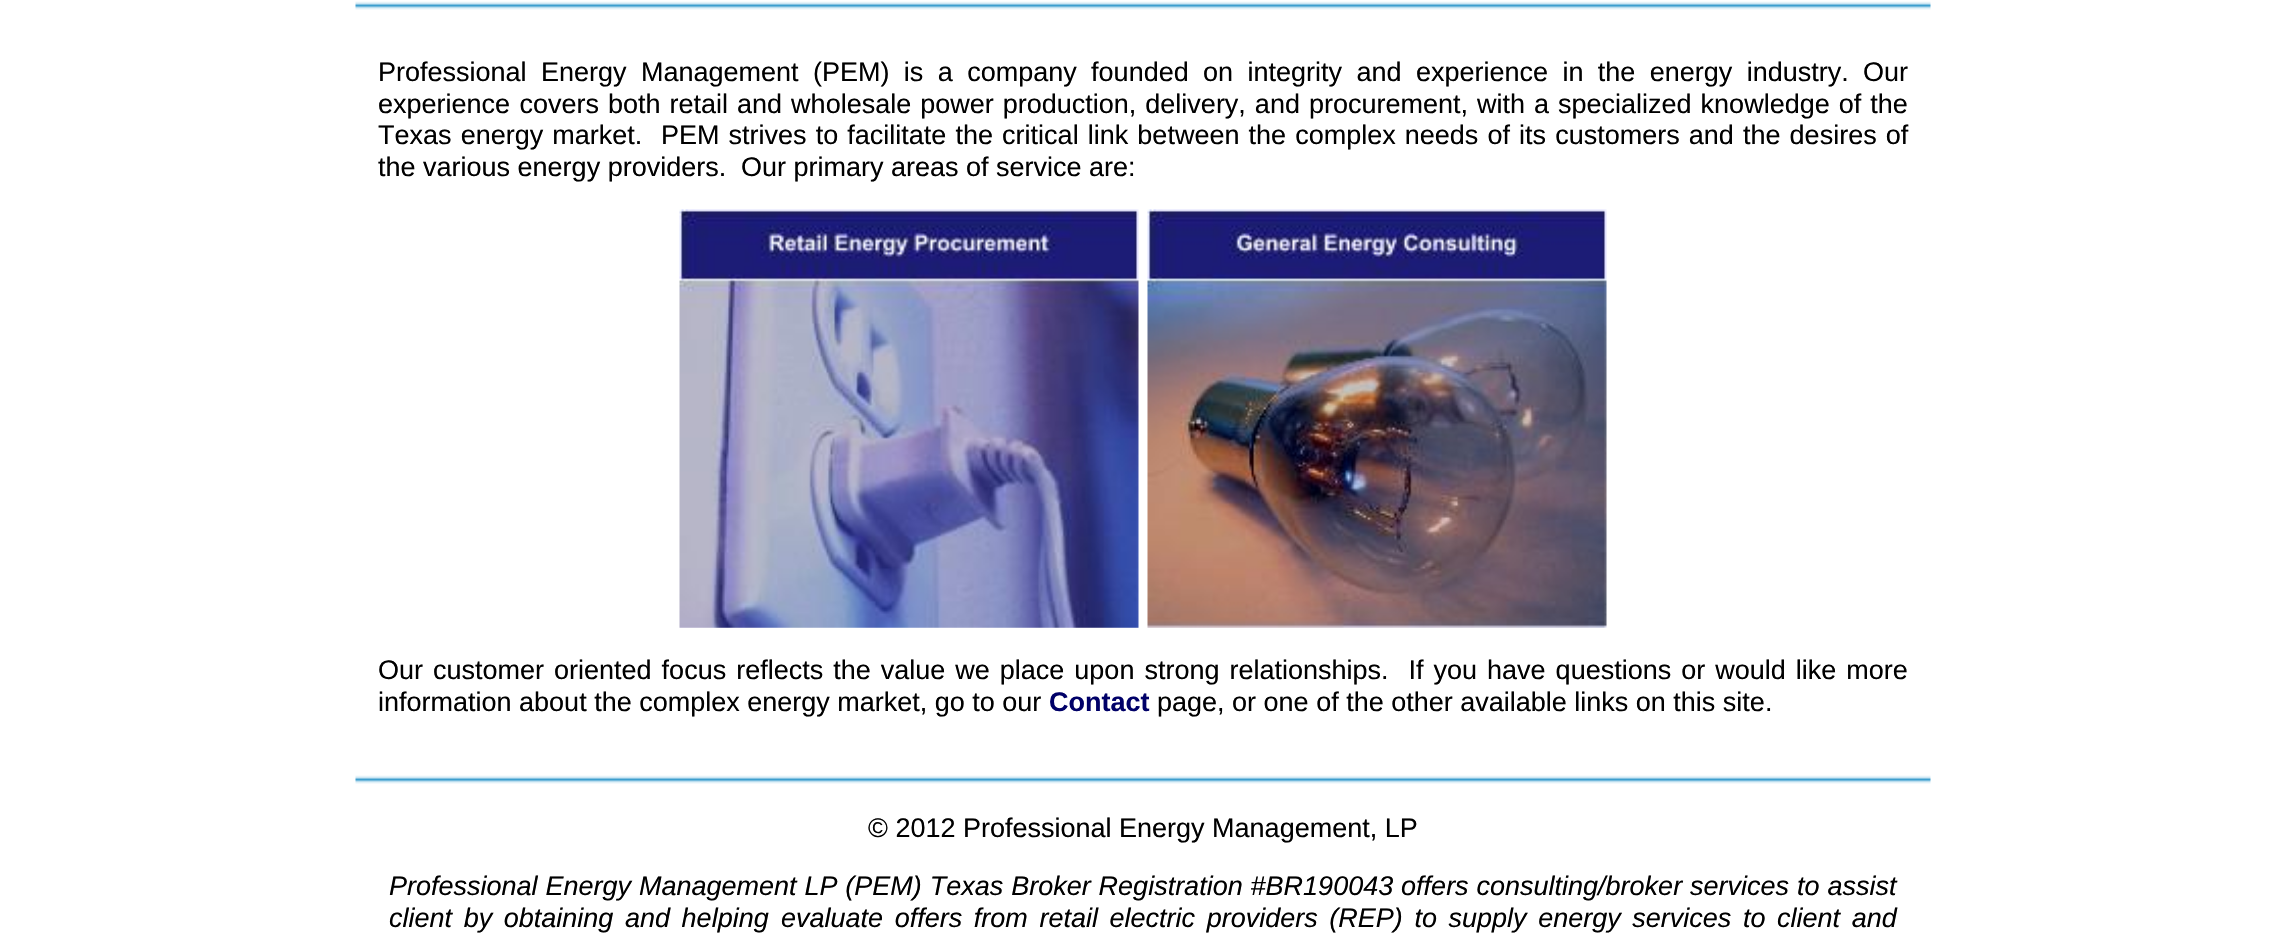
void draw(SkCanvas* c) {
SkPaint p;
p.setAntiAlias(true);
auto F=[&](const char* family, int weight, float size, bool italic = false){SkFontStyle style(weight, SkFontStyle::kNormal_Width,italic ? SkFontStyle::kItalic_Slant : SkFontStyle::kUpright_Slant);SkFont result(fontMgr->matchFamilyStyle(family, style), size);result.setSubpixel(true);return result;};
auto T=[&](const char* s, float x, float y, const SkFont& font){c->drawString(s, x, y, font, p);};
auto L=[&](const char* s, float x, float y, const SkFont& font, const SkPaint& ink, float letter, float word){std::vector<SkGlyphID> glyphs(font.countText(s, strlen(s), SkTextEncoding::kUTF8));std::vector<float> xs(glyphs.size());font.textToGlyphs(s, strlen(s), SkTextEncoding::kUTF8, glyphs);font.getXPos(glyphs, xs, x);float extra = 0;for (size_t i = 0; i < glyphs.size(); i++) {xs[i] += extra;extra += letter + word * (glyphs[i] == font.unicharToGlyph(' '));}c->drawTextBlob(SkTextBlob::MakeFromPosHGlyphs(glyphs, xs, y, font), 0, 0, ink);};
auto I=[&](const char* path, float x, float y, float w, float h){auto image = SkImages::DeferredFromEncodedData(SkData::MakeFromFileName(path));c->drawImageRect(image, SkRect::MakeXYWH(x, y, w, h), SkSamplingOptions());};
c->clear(0xffffffff);
I("1.png",355,1,1576,9);
auto f1 = F("Liberation Sans",400,27);
p.setColor(0xff000000);
L("Professional Energy Management (PEM) is a company founded on integrity and experience in the energy industry.",378,81,f1,p,0,6.9);
T("Our",1863,81,f1);
L("experience covers",378,113,f1,p,0,2);
L("both retail and wholesale power production, delivery, and procurement, with a specialized knowledge of the",608,113,f1,p,0,1.5);
L("Texas energy market.",378,144,f1,p,0,1.6);
L("PEM strives to facilitate the critical link between the complex needs of its customers and the desires of",661,144,f1,p,0,1.6);
T("the various energy providers.",378,176,f1);
T("Our primary areas of service are:",741,176,f1);
I("2.png",679,209,460,419);
I("3.png",1147,209,460,419);
L("Our customer oriented focus reflects the value we place upon strong relationships.  If you have questions or would like more",378,679,f1,p,0,2.5);
T("information about the complex energy market, go to our",378,711,f1);
auto f2 = F("Liberation Sans",700,27);
p.setColor(0xff000068);
T("Contact",1049,711,f2);
p.setColor(0xff000000);
T("page, or one of the other available links on this site.",1157,711,f1);
I("1.png",355,775,1576,9);
T("© 2012 Professional Energy Management, LP",868,837,f1);
auto f3 = F("Liberation Sans",400,27,true);
L("Professional Energy Management LP (PEM) Texas Broker Registration #BR190043 offers consulting/broker services to assist",389,895,f3,p,0,.4);
L("client by obtaining and helping",389,927,f3,p,0,4.1);
L("evaluate offers from retail electric providers (REP) to supply energy services to client and",781,927,f3,p,0,4.1);
}
